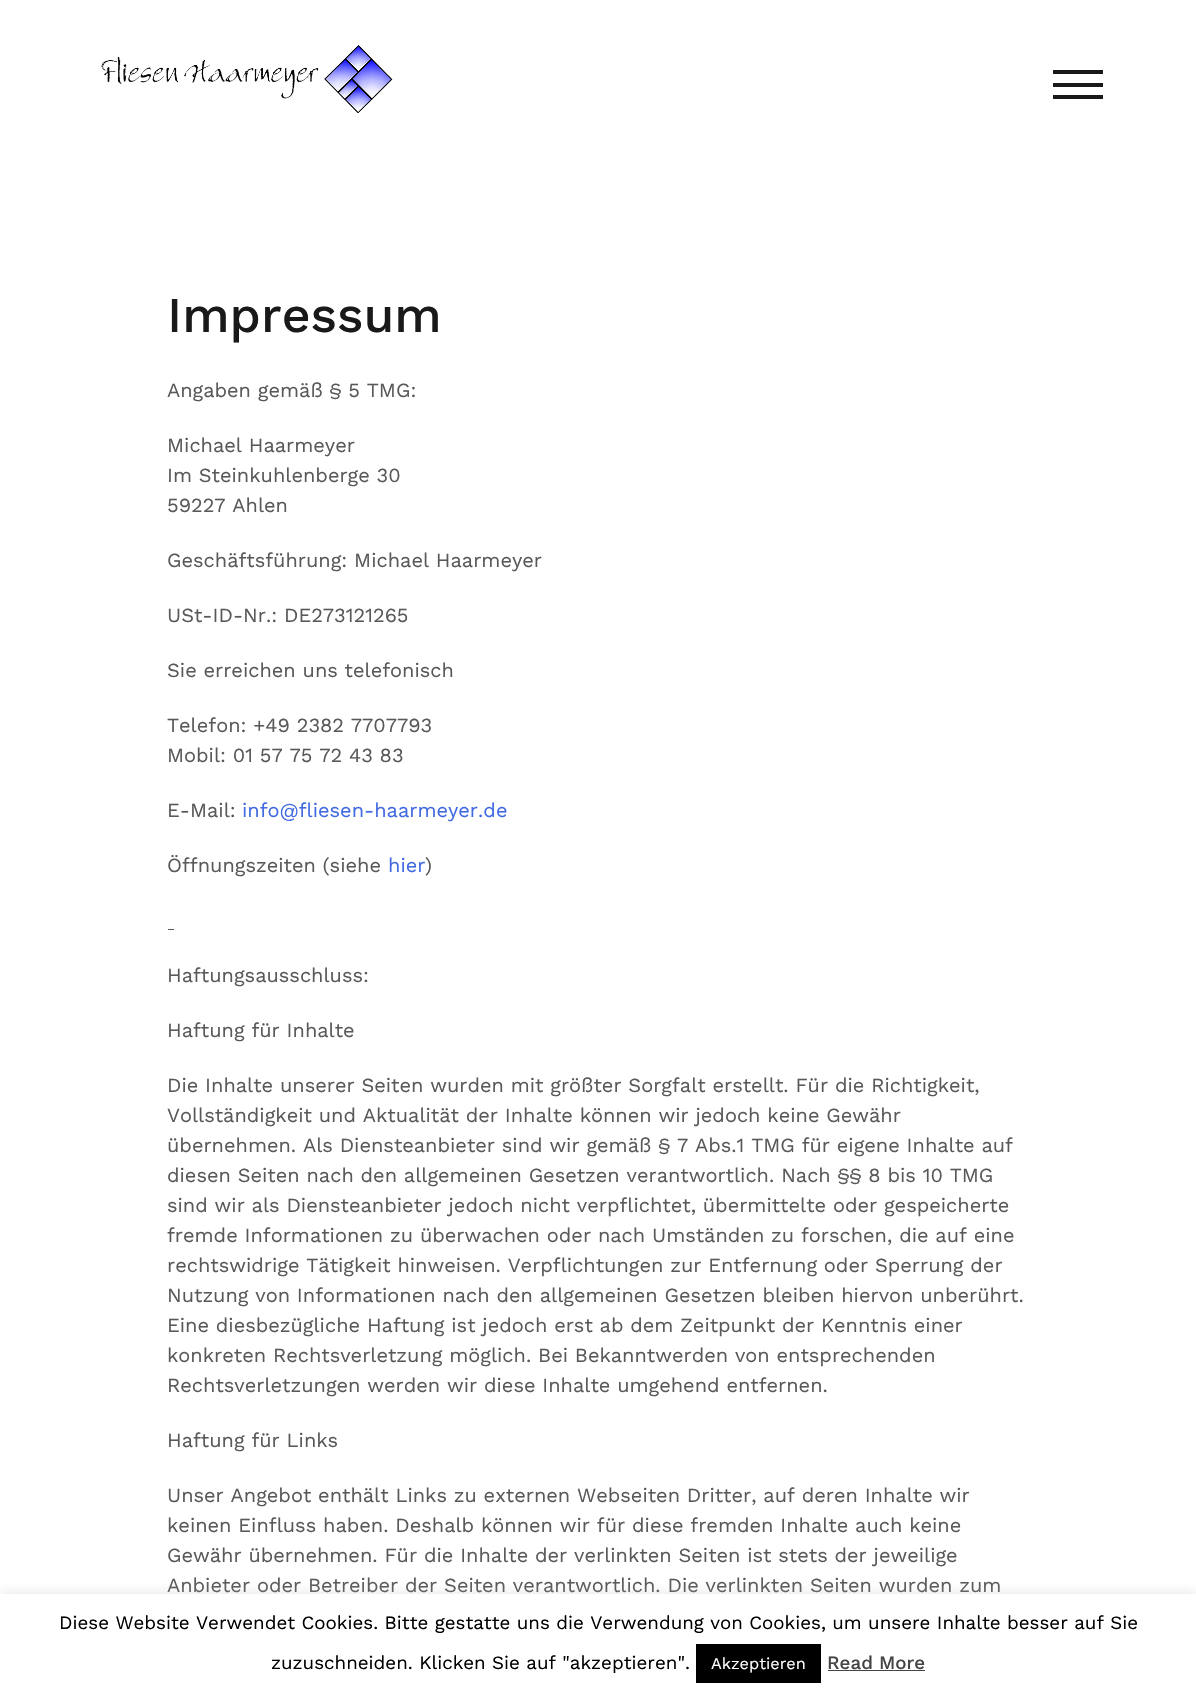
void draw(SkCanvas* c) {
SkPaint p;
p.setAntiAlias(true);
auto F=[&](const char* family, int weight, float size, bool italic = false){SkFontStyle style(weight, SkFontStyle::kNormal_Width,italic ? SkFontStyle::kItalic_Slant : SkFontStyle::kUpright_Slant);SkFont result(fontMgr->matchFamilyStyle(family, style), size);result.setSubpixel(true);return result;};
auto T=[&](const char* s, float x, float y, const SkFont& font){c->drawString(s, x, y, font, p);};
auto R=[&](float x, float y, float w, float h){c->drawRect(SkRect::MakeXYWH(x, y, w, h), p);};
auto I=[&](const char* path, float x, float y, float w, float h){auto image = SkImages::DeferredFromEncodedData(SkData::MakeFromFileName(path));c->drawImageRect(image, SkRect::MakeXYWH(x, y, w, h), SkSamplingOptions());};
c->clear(0xffffffff);
I("1.png",101,45,292,68);
p.setColor(0xff191919);
R(1053,83,50,4);
R(1053,70,50,4);
R(1053,95,50,4);
auto f1 = F("Work Sans",500,50);
T("Impressum",167,332,f1);
auto f2 = F("Work Sans",400,20);
p.setColor(0xff595959);
T("Angaben gemäß § 5 TMG:",167,397,f2);
T("Michael Haarmeyer",167,452,f2);
T("Im Steinkuhlenberge 30",167,482,f2);
T("59227 Ahlen",167,512,f2);
T("Geschäftsführung: Michael Haarmeyer",167,567,f2);
T("USt-ID-Nr.: DE273121265",167,622,f2);
T("Sie erreichen uns telefonisch",167,677,f2);
T("Telefon: +49 2382 7707793",167,732,f2);
T("Mobil: 01 57 75 72 43 83",167,762,f2);
T("E-Mail:",167,817,f2);
p.setColor(0xff4169e1);
T("info@fliesen-haarmeyer.de",242,817,f2);
p.setColor(0xff595959);
T("Öffnungszeiten (siehe",167,872,f2);
p.setColor(0xff4169e1);
T("hier",388,872,f2);
p.setColor(0xff595959);
T(")",425,872,f2);
R(168,929,6,1);
T("Haftungsausschluss:",167,982,f2);
T("Haftung für Inhalte",167,1037,f2);
T("Die Inhalte unserer Seiten wurden mit größter Sorgfalt erstellt. Für die Richtigkeit,",167,1092,f2);
T("Vollständigkeit und Aktualität der Inhalte können wir jedoch keine Gewähr",167,1122,f2);
T("übernehmen. Als Diensteanbieter sind wir gemäß § 7 Abs.1 TMG für eigene Inhalte auf",167,1152,f2);
T("diesen Seiten nach den allgemeinen Gesetzen verantwortlich. Nach §§ 8 bis 10 TMG",167,1182,f2);
T("sind wir als Diensteanbieter jedoch nicht verpflichtet, übermittelte oder gespeicherte",167,1212,f2);
T("fremde Informationen zu überwachen oder nach Umständen zu forschen, die auf eine",167,1242,f2);
T("rechtswidrige Tätigkeit hinweisen. Verpflichtungen zur Entfernung oder Sperrung der",167,1272,f2);
T("Nutzung von Informationen nach den allgemeinen Gesetzen bleiben hiervon unberührt.",167,1302,f2);
T("Eine diesbezügliche Haftung ist jedoch erst ab dem Zeitpunkt der Kenntnis einer",167,1332,f2);
T("konkreten Rechtsverletzung möglich. Bei Bekanntwerden von entsprechenden",167,1362,f2);
T("Rechtsverletzungen werden wir diese Inhalte umgehend entfernen.",167,1392,f2);
T("Haftung für Links",167,1447,f2);
T("Unser Angebot enthält Links zu externen Webseiten Dritter, auf deren Inhalte wir",167,1502,f2);
T("keinen Einfluss haben. Deshalb können wir für diese fremden Inhalte auch keine",167,1532,f2);
T("Gewähr übernehmen. Für die Inhalte der verlinkten Seiten ist stets der jeweilige",167,1562,f2);
T("Anbieter oder Betreiber der Seiten verantwortlich. Die verlinkten Seiten wurden zum",167,1592,f2);
p.setColor(0x4dacabab);
p.setMaskFilter(SkMaskFilter::MakeBlur(kNormal_SkBlurStyle, 6));
c->drawRect(SkRect::MakeXYWH(0,1593,1196,103),p);
p.setMaskFilter(nullptr);
p.setColor(0xffffffff);
R(0,1594,1196,103);
auto f3 = F("Work Sans",400,18.75);
p.setColor(0xff000000);
T("Diese Website Verwendet Cookies. Bitte gestatte uns die Verwendung von Cookies, um unsere Inhalte besser auf Sie",59,1629,f3);
T("zuzuschneiden. Klicken Sie auf \"akzeptieren\".",271,1669,f3);
R(696,1644,125,39);
auto f4 = F("Work Sans",400,16.25);
p.setColor(0xffffffff);
T("Akzeptieren",711,1669,f4);
auto f5 = F("Work Sans",500,18.75);
p.setColor(0xff444444);
T("Read More",827,1669,f5);
R(828,1670,97,1);
}
